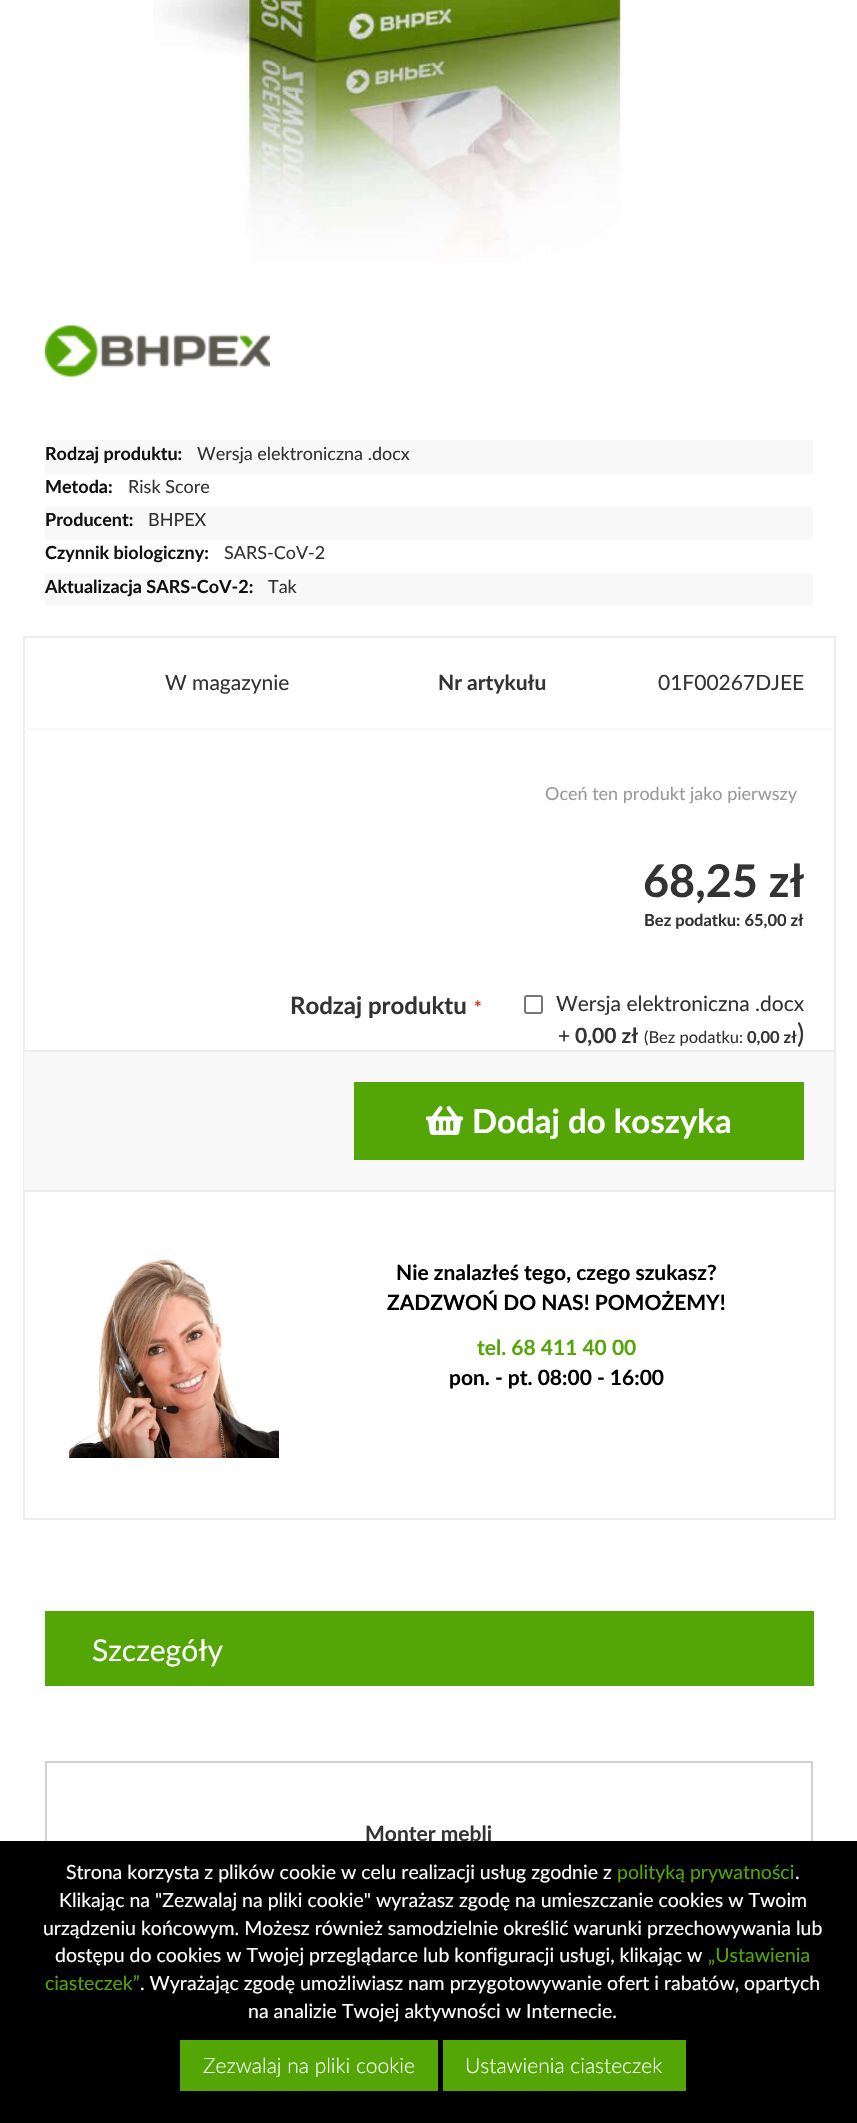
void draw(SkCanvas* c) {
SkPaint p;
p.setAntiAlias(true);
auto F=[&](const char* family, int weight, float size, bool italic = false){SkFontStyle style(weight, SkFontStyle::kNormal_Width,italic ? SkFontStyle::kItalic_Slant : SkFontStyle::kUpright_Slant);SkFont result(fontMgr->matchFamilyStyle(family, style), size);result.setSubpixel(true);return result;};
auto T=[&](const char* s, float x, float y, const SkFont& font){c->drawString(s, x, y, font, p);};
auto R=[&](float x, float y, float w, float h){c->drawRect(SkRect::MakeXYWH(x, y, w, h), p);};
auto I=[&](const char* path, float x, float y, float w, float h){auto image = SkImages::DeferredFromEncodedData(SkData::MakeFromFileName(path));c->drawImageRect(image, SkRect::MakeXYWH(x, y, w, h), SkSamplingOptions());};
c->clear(0xffffffff);
I("1.png",153,0,471,263);
I("2.png",45,325,225,52);
p.setColor(0xfff8f8f8);
R(45,440,768,34);
auto f1 = F("Lato",700,18);
p.setColor(0xff111111);
T("Rodzaj produktu:",45,460,f1);
auto f2 = F("Lato",400,18);
p.setColor(0xff333333);
T("Wersja elektroniczna .docx",197,460,f2);
p.setColor(0xff111111);
T("Metoda:",45,493,f1);
p.setColor(0xff333333);
T("Risk Score",128,493,f2);
p.setColor(0xfff8f8f8);
R(45,507,768,33);
p.setColor(0xff111111);
T("Producent:",45,526,f1);
p.setColor(0xff333333);
T("BHPEX",148,526,f2);
p.setColor(0xff111111);
T("Czynnik biologiczny:",45,559,f1);
p.setColor(0xff333333);
T("SARS-CoV-2",224,559,f2);
p.setColor(0xfff8f8f8);
R(45,573,768,33);
p.setColor(0xff111111);
T("Aktualizacja SARS-CoV-2:",45,593,f1);
p.setColor(0xff333333);
T("Tak",268,593,f2);
p.setStroke(true);
p.setStrokeWidth(2);
p.setColor(0xffececec);
c->drawRect(SkRect::MakeXYWH(24,637,811,882),p);
p.setStroke(false);
p.setColor(0xfff8f8f8);
R(24,728,810,2);
auto f3 = F("Lato",400,21);
p.setColor(0xff333333);
T("W magazynie",165,690,f3);
auto f4 = F("Lato",700,21);
T("Nr artykułu",438,690,f4);
T("01F00267DJEE",658,690,f3);
p.setColor(0xff999999);
T("Oceń ten produkt jako pierwszy",545,800,f2);
auto f5 = F("Lato",700,45);
p.setColor(0xff333333);
T("68,25 zł",643,897,f5);
auto f6 = F("Lato",700,16.5);
T("Bez podatku: 65,00 zł",644,926,f6);
auto f7 = F("Lato",700,24);
T("Rodzaj produktu",290,1014,f7);
p.setColor(0xffe02b27);
T("*",474,1014,f1);
p.setStroke(true);
p.setColor(0xff767676);
c->drawRoundRect(SkRect::MakeXYWH(525,996,17,17),2,2,p);
p.setStroke(false);
p.setColor(0xff333333);
T("Wersja elektroniczna .docx",556,1011,f3);
T("+",558,1043,f3);
T("0,00 zł",575,1043,f4);
auto f8 = F("Lato",400,16.5);
T("(Bez podatku:",644,1043,f8);
T("0,00 zł",747,1043,f6);
auto f9 = F("Lato",400,27);
T(")",797,1043,f9);
p.setColor(0xfff8f8f8);
R(24,1052,810,138);
p.setColor(0xffececec);
R(24,1050,810,2);
R(24,1190,810,2);
p.setColor(0xff54a506);
R(354,1082,450,78);
I("3.png",426,1106,38,29);
auto f10 = F("Lato",700,33);
p.setColor(0xffffffff);
T("Dodaj do koszyka",472,1133,f10);
I("4.png",69,1258,210,200);
p.setColor(0xff000000);
T("Nie znalazłeś tego, czego szukasz?",396,1280,f4);
T("ZADZWOŃ DO NAS! POMOŻEMY!",387,1310,f4);
p.setColor(0xff54a506);
T("tel. 68 411 40 00",477,1355,f4);
p.setColor(0xff000000);
T("pon. - pt. 08:00 - 16:00",449,1385,f4);
p.setColor(0xff54a506);
R(45,1611,769,75);
auto f11 = F("Lato",400,30);
p.setColor(0xffffffff);
T("Szczegóły",92,1661,f11);
p.setStroke(true);
p.setColor(0xffd1d1d1);
c->drawRect(SkRect::MakeXYWH(46,1762,766,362),p);
p.setStroke(false);
p.setColor(0xff333333);
T("Monter mebli",365,1841,f4);
p.setColor(0xff000000);
R(0,1841,857,282);
auto f12 = F("Lato",400,19.5);
p.setColor(0xffffffff);
T("Strona korzysta z plików cookie w celu realizacji usług zgodnie z",66,1879,f12);
p.setColor(0xff54a506);
T("polityką prywatności",617,1879,f12);
p.setColor(0xffffffff);
T(".",795,1879,f12);
T("Klikając na \"Zezwalaj na pliki cookie\" wyrażasz zgodę na umieszczanie cookies w Twoim",59,1907,f12);
T("urządzeniu końcowym. Możesz również samodzielnie określić warunki przechowywania lub",43,1935,f12);
T("dostępu do cookies w Twojej przeglądarce lub konfiguracji usługi, klikając w",55,1962,f12);
p.setColor(0xff54a506);
T("„Ustawienia",708,1962,f12);
T("ciasteczek”",45,1990,f12);
p.setColor(0xffffffff);
T(". Wyrażając zgodę umożliwiasz nam przygotowywanie ofert i rabatów, opartych",140,1990,f12);
T("na analizie Twojej aktywności w Internecie.",248,2018,f12);
p.setColor(0xff54a506);
R(180,2040,258,51);
auto f13 = F("Lato",300,21);
p.setColor(0xffffffff);
T("Zezwalaj na pliki cookie",203,2073,f13);
p.setColor(0xff54a506);
R(443,2040,243,51);
p.setColor(0xffffffff);
T("Ustawienia ciasteczek",465,2073,f13);
}
